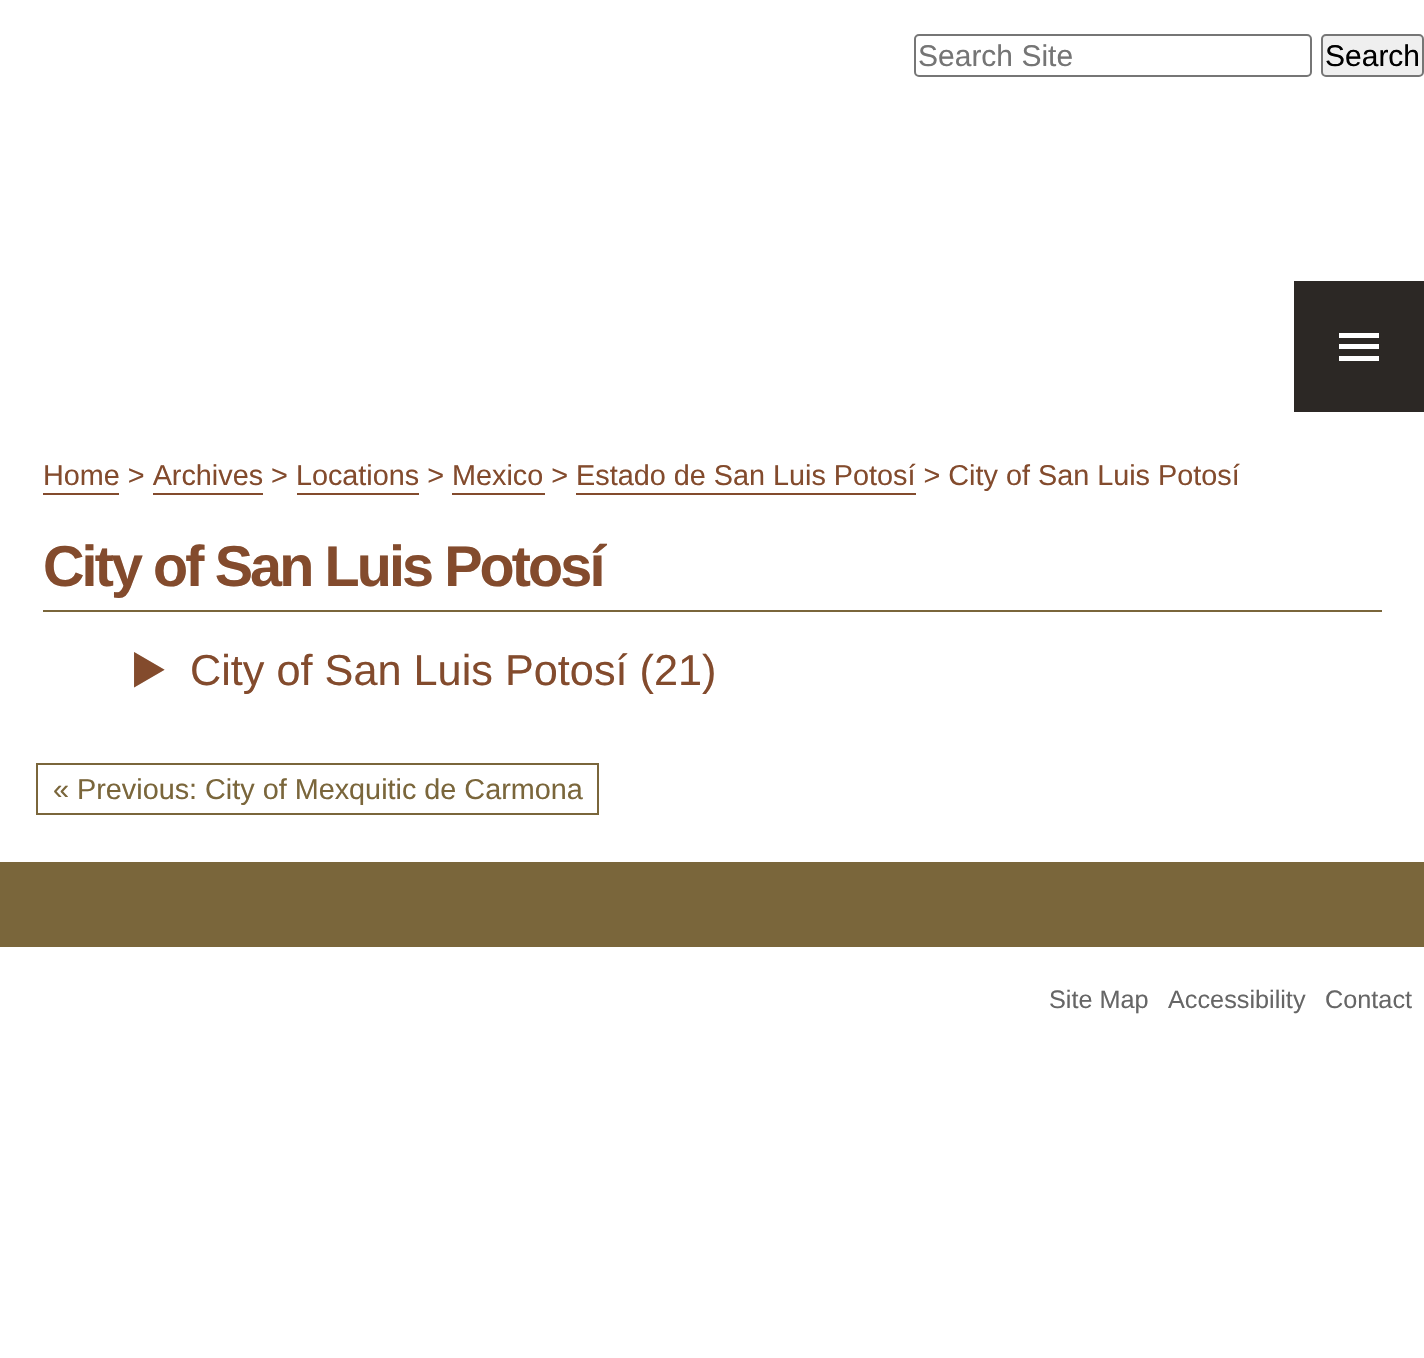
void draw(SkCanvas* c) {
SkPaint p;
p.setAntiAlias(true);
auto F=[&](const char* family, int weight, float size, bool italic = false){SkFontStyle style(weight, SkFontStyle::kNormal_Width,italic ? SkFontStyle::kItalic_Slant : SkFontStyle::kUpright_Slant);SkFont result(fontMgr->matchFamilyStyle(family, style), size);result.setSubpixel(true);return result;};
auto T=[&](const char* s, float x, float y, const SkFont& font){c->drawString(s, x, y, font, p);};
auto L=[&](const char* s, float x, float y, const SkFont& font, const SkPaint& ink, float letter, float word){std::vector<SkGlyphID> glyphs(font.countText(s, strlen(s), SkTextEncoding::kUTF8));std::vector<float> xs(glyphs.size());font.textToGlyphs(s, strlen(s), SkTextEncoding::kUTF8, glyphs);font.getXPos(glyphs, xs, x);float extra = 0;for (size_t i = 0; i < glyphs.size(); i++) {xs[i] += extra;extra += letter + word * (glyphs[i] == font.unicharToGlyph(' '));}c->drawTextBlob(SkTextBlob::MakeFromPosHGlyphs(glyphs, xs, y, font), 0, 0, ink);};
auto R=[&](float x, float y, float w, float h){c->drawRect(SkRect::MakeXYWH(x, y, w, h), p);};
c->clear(0xffffffff);
p.setStroke(true);
p.setStrokeWidth(2);
p.setColor(0xff767676);
c->drawRoundRect(SkRect::MakeXYWH(915,35,396,41),4,4,p);
auto f1 = F("Liberation Sans",400,30);
p.setStroke(false);
p.setColor(0xff757575);
T("Search Site",918,66,f1);
p.setColor(0xffefefef);
c->drawRoundRect(SkRect::MakeXYWH(1322,35,101,41),4,4,p);
p.setStroke(true);
p.setColor(0xff767676);
c->drawRoundRect(SkRect::MakeXYWH(1322,35,101,41),4,4,p);
p.setStroke(false);
p.setColor(0xff000000);
T("Search",1325,66,f1);
p.setColor(0xff2c2825);
R(1294,281,130,131);
p.setColor(0xffffffff);
R(1339,344,40,5);
R(1339,333,40,5);
R(1339,356,40,5);
p.setColor(0xff834b2d);
R(43,493,76,2);
auto f2 = F("Liberation Sans",400,28.8);
T("Home > Archives > Locations > Mexico > Estado de San Luis Potosí > City of San Luis Potosí",43,485,f2);
R(153,493,110,2);
R(297,493,122,2);
R(452,493,93,2);
R(576,493,340,2);
p.setColor(0xff7a663b);
R(43,610,1339,2);
auto f3 = F("Liberation Sans",700,57.5);
p.setColor(0xff834b2d);
L("City of San Luis Potosí",43,586,f3,p,-2.9,0);
auto f4 = F("FreeSans",400,43.25);
T("▶",130,685,f4);
auto f5 = F("Liberation Sans",400,43.25);
T("City of San Luis Potosí (21)",190,685,f5);
p.setStroke(true);
p.setColor(0xff7a663b);
c->drawRect(SkRect::MakeXYWH(37,764,561,50),p);
p.setStroke(false);
T("« Previous: City of Mexquitic de Carmona",53,799,f2);
R(0,862,1424,85);
auto f6 = F("Liberation Sans",400,25.25);
p.setColor(0xff666666);
T("Site Map",1049,1008,f6);
T("Accessibility",1168,1008,f6);
T("Contact",1325,1008,f6);
}
